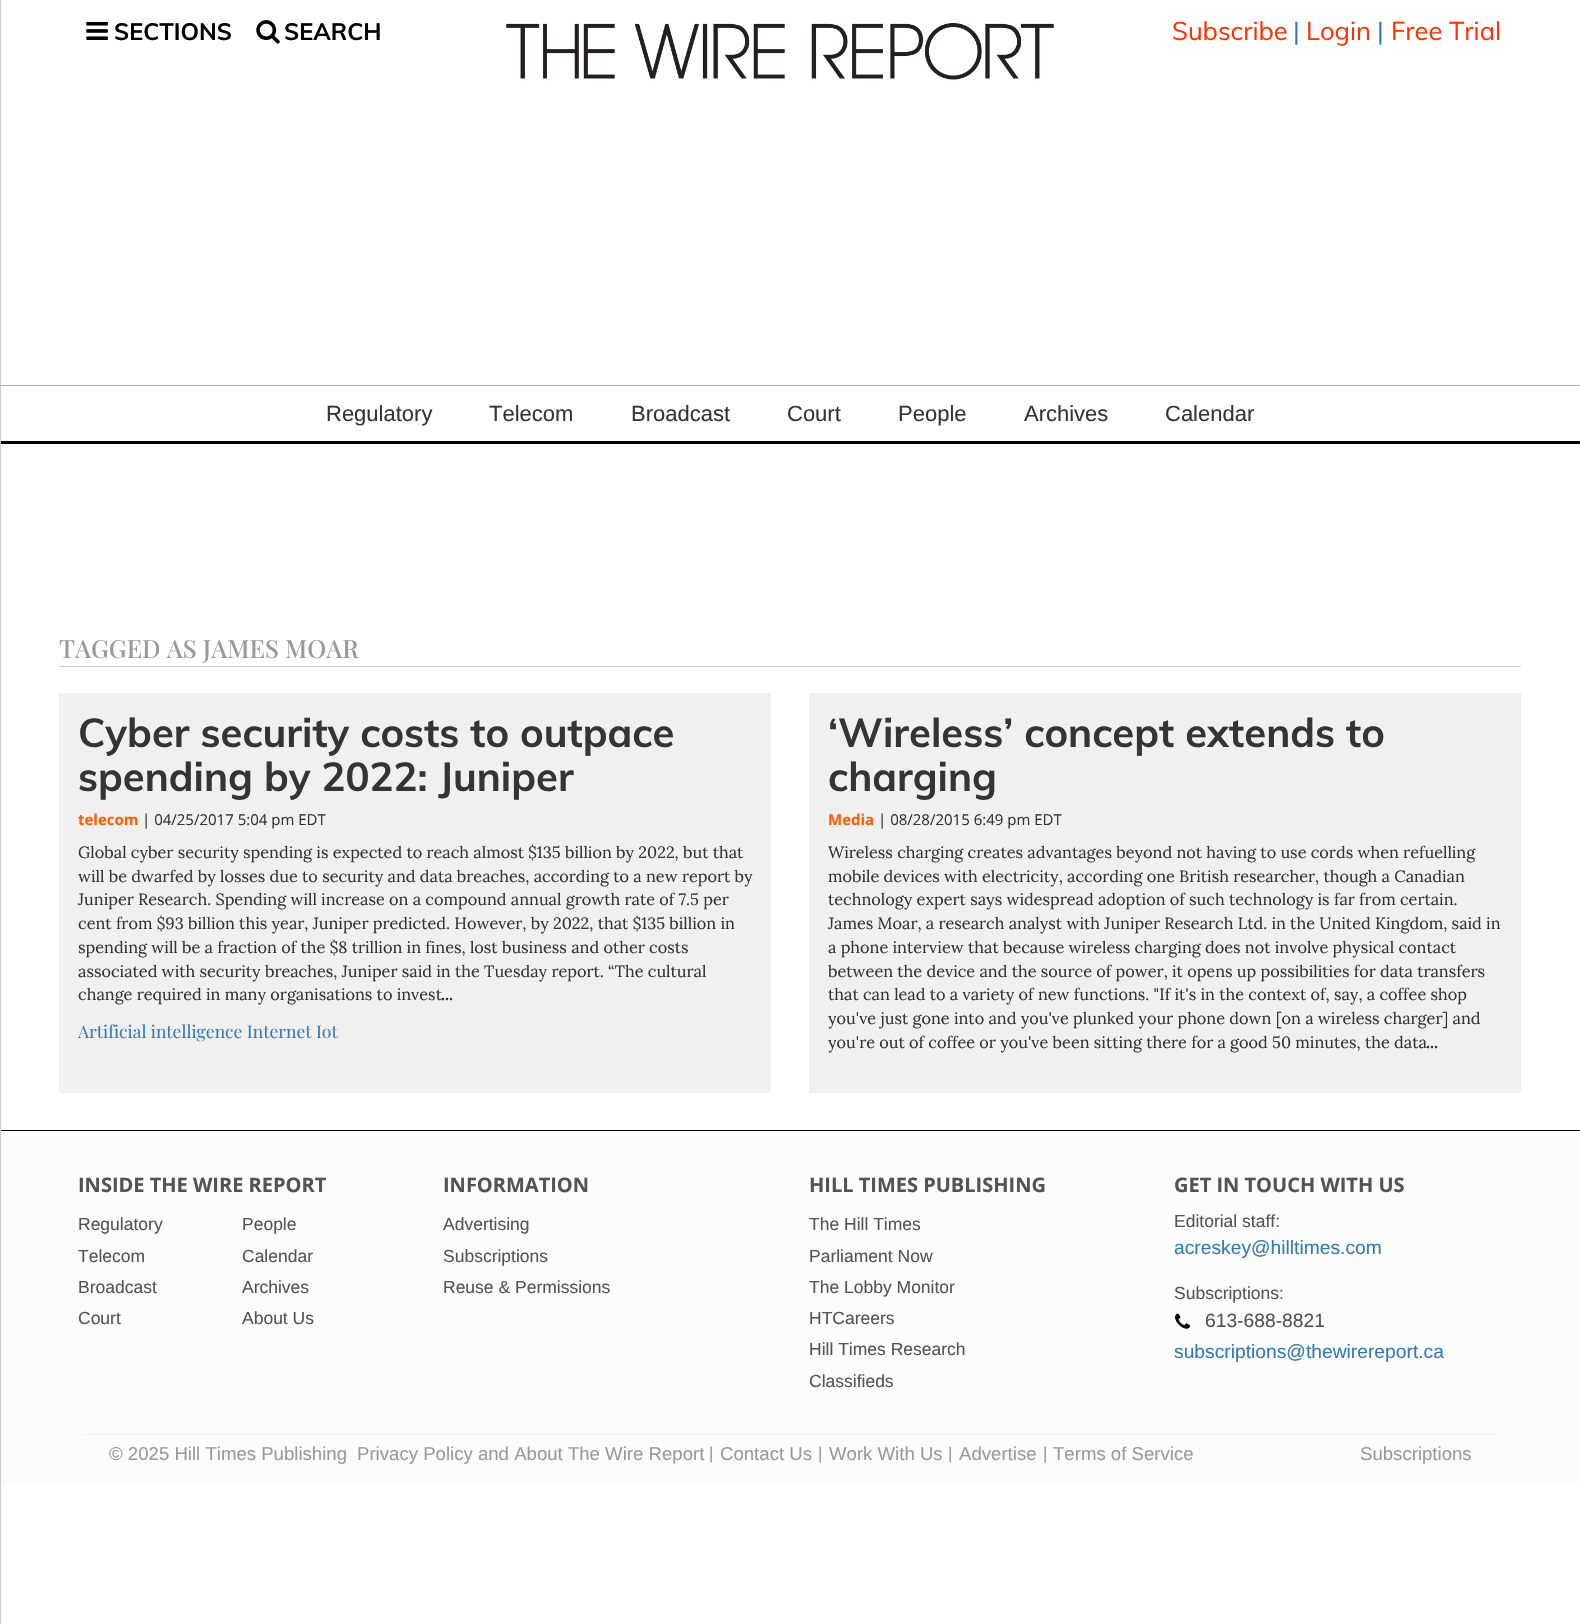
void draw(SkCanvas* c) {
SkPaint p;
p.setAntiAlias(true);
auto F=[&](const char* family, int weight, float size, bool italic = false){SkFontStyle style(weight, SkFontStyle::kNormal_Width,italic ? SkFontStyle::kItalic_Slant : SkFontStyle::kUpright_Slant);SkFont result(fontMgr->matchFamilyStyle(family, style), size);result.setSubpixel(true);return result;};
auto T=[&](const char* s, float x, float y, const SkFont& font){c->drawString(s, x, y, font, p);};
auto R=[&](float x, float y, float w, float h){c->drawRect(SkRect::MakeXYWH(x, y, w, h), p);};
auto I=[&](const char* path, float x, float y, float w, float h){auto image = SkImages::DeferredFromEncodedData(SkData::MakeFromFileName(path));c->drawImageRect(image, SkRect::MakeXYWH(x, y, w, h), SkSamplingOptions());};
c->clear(0xffffffff);
p.setColor(0xffb1b1b1);
R(0,385,1580,1);
p.setColor(0xff000000);
R(0,441,1580,3);
R(0,1130,1580,1);
p.setColor(0xffcccccc);
R(0,0,1,1624);
I("1.png",86,21,22,19);
auto f1 = F("Muli",700,23.5);
p.setColor(0xff000000);
T("SECTIONS",114,40,f1);
I("2.png",256,20,24,24);
T("SEARCH",284,40,f1);
I("3.png",506,23,548,57);
auto f2 = F("Muli",400,25.5);
p.setColor(0xffff3100);
T("Subscribe",1172,40,f2);
p.setColor(0xff337ab7);
T("|",1293,40,f2);
p.setColor(0xffff3100);
T("Login",1306,40,f2);
p.setColor(0xff337ab7);
T("|",1377,40,f2);
p.setColor(0xffff3100);
T("Free Trial",1391,40,f2);
auto f3 = F("Liberation Sans",400,22);
p.setColor(0xff353434);
T("Regulatory",326,421,f3);
T("Telecom",489,421,f3);
T("Broadcast",631,421,f3);
T("Court",787,421,f3);
T("People",898,421,f3);
T("Archives",1024,421,f3);
T("Calendar",1165,421,f3);
p.setColor(0xffcccccc);
R(59,666,1462,1);
auto f4 = F("Playfair Display",500,25);
p.setColor(0xff999999);
T("TAGGED AS JAMES MOAR",59,658,f4);
p.setColor(0xfff0f0f0);
R(59,693,712,400);
auto f5 = F("Muli",700,40);
p.setColor(0xff353434);
T("Cyber security costs to outpace",78,747,f5);
T("spending by 2022: Juniper",78,791,f5);
auto f6 = F("Open Sans",700,15);
p.setColor(0xffff5e00);
T("telecom",78,825,f6);
auto f7 = F("Open Sans",400,15);
p.setColor(0xff353434);
T("| 04/25/2017 5:04 pm EDT",142,825,f7);
auto f8 = F("Lora",400,16.25);
T("Global cyber security spending is expected to reach almost $135 billion by 2022, but that",78,858,f8);
T("will be dwarfed by losses due to security and data breaches, according to a new report by",78,882,f8);
T("Juniper Research. Spending will increase on a compound annual growth rate of 7.5 per",78,905,f8);
T("cent from $93 billion this year, Juniper predicted. However, by 2022, that $135 billion in",78,929,f8);
T("spending will be a fraction of the $8 trillion in fines, lost business and other costs",78,953,f8);
T("associated with security breaches, Juniper said in the Tuesday report. “The cultural",78,977,f8);
T("change required in many organisations to invest",78,1000,f8);
auto f9 = F("Open Sans",700,14);
T("...",441,1000,f9);
auto f10 = F("Playfair Display",400,17.5);
p.setColor(0xff337ab7);
T("Artificial intelligence Internet Iot",78,1038,f10);
p.setColor(0xfff0f0f0);
R(809,693,712,400);
p.setColor(0xff353434);
T("‘Wireless’ concept extends to",828,747,f5);
T("charging",828,791,f5);
p.setColor(0xffff5e00);
T("Media",828,825,f6);
p.setColor(0xff353434);
T("| 08/28/2015 6:49 pm EDT",878,825,f7);
T("Wireless charging creates advantages beyond not having to use cords when refuelling",828,858,f8);
T("mobile devices with electricity, according one British researcher, though a Canadian",828,882,f8);
T("technology expert says widespread adoption of such technology is far from certain.",828,905,f8);
T("James Moar, a research analyst with Juniper Research Ltd. in the United Kingdom, said in",828,929,f8);
T("a phone interview that because wireless charging does not involve physical contact",828,953,f8);
T("between the device and the source of power, it opens up possibilities for data transfers",828,977,f8);
T("that can lead to a variety of new functions. \"If it's in the context of, say, a coffee shop",828,1000,f8);
T("you've just gone into and you've plunked your phone down [on a wireless charger] and",828,1024,f8);
T("you're out of coffee or you've been sitting there for a good 50 minutes, the data",828,1048,f8);
T("...",1426,1048,f9);
p.setColor(0xfffcfcfc);
R(1,1131,1579,354);
auto f11 = F("Open Sans",700,20);
p.setColor(0xff525452);
T("INSIDE THE WIRE REPORT",78,1192,f11);
auto f12 = F("Liberation Sans",400,17.5);
T("Regulatory",78,1230,f12);
T("Telecom",78,1262,f12);
T("Broadcast",78,1293,f12);
T("Court",78,1324,f12);
T("People",242,1230,f12);
T("Calendar",242,1262,f12);
T("Archives",242,1293,f12);
T("About Us",242,1324,f12);
T("INFORMATION",443,1192,f11);
T("Advertising",443,1230,f12);
T("Subscriptions",443,1262,f12);
T("Reuse & Permissions",443,1293,f12);
T("HILL TIMES PUBLISHING",809,1192,f11);
T("The Hill Times",809,1230,f12);
T("Parliament Now",809,1262,f12);
T("The Lobby Monitor",809,1293,f12);
T("HTCareers",809,1324,f12);
T("Hill Times Research",809,1355,f12);
T("Classifieds",809,1387,f12);
T("GET IN TOUCH WITH US",1174,1192,f11);
T("Editorial staff:",1174,1227,f12);
auto f13 = F("Liberation Sans",400,19.25);
p.setColor(0xff337ab7);
T("acreskey@hilltimes.com",1174,1254,f13);
p.setColor(0xff525452);
T("Subscriptions:",1174,1299,f12);
I("4.png",1175,1313,16,16);
T("613-688-8821",1205,1327,f13);
p.setColor(0xff337ab7);
T("subscriptions@thewirereport.ca",1174,1358,f13);
p.setColor(0xffefefef);
R(84,1434,1412,1);
auto f14 = F("Liberation Sans",400,18.6);
p.setColor(0xff999999);
T("© 2025 Hill Times Publishing",109,1460,f14);
T("Privacy Policy and About The Wire Report",357,1460,f14);
auto f15 = F("Liberation Sans",400,17);
T("|",709,1459,f15);
T("Contact Us",720,1460,f14);
T("|",818,1459,f15);
T("Work With Us",829,1460,f14);
T("|",948,1459,f15);
T("Advertise",959,1460,f14);
T("|",1043,1459,f15);
T("Terms of Service",1053,1460,f14);
T("Subscriptions",1360,1460,f14);
}
